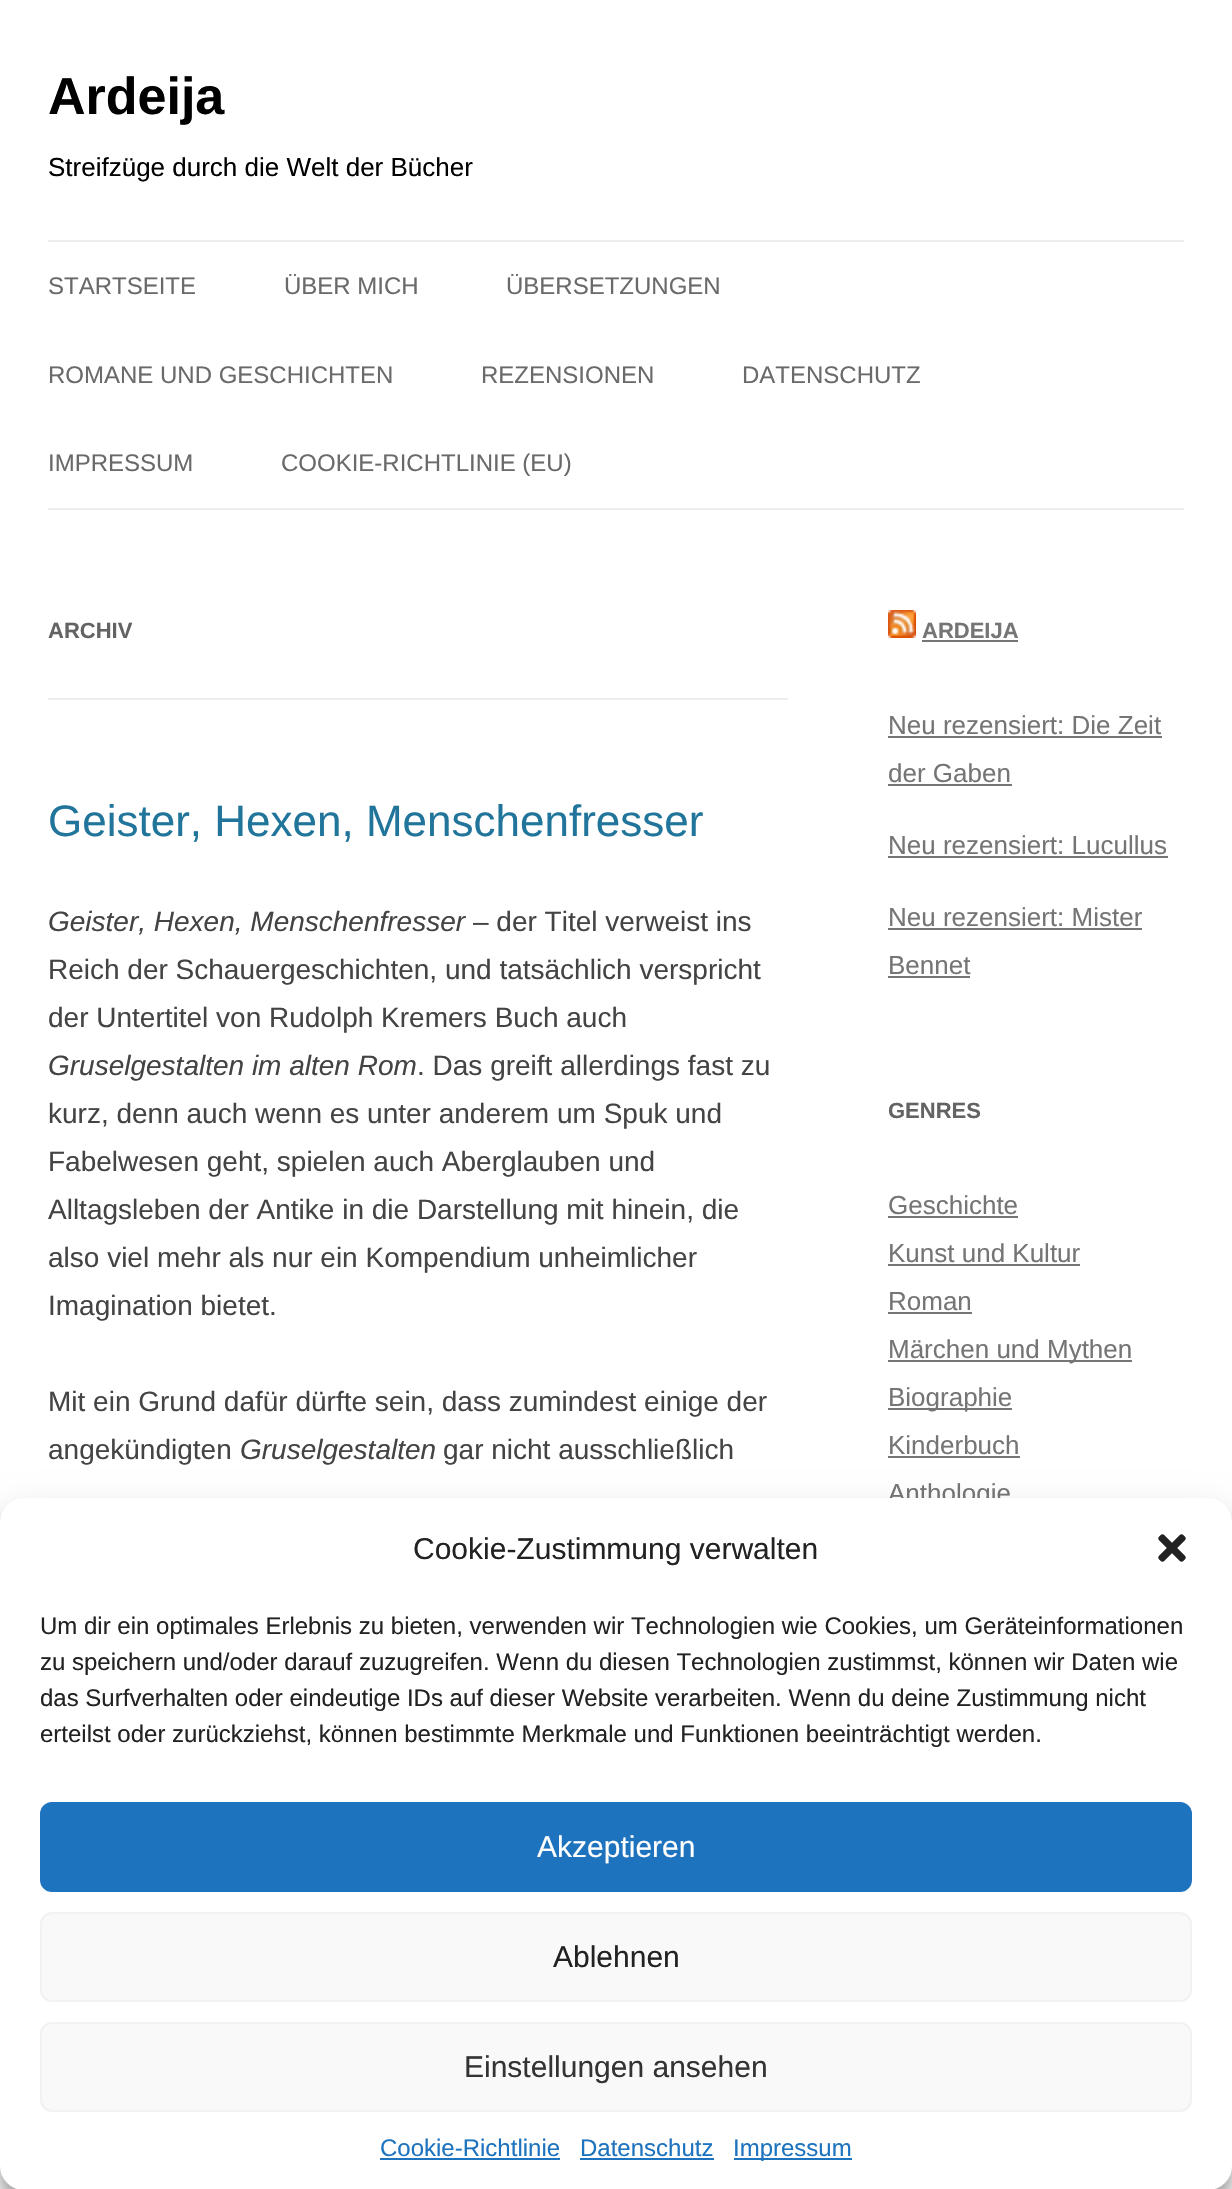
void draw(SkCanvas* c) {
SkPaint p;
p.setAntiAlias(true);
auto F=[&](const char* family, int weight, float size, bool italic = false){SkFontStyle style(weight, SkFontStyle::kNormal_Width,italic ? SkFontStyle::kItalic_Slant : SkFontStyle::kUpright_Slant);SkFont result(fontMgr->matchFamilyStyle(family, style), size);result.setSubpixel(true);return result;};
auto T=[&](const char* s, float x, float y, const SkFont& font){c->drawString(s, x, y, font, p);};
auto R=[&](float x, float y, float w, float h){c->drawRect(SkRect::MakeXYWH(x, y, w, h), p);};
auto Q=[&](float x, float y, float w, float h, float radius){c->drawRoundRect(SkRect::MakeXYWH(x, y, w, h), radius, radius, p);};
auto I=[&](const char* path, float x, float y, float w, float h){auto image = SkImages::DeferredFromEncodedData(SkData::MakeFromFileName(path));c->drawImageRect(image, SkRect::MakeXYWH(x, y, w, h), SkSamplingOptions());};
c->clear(0xffffffff);
auto f1 = F("Liberation Sans",700,52);
p.setColor(0xff000000);
T("Ardeija",48,114,f1);
auto f2 = F("Liberation Sans",400,26);
T("Streifzüge durch die Welt der Bücher",48,176,f2);
p.setColor(0xffededed);
R(48,240,1136,2);
R(48,508,1136,2);
auto f3 = F("Liberation Sans",400,24);
p.setColor(0xff6a6a6a);
T("STARTSEITE",48,294,f3);
T("ÜBER MICH",284,294,f3);
T("ÜBERSETZUNGEN",506,294,f3);
T("ROMANE UND GESCHICHTEN",48,383,f3);
T("REZENSIONEN",481,383,f3);
T("DATENSCHUTZ",742,383,f3);
T("IMPRESSUM",48,471,f3);
T("COOKIE-RICHTLINIE (EU)",281,471,f3);
p.setColor(0xffededed);
R(48,698,740,2);
auto f4 = F("Liberation Sans",700,22);
p.setColor(0xff636363);
T("ARCHIV",48,638,f4);
auto f5 = F("Liberation Sans",400,44);
p.setColor(0xff21759b);
T("Geister, Hexen, Menschenfresser",48,836,f5);
auto f6 = F("Liberation Sans",400,28,true);
p.setColor(0xff444444);
T("Geister, Hexen, Menschenfresser",48,931,f6);
auto f7 = F("Liberation Sans",400,28);
T("– der Titel verweist ins",473,931,f7);
T("Reich der Schauergeschichten, und tatsächlich verspricht",48,979,f7);
T("der Untertitel von Rudolph Kremers Buch auch",48,1027,f7);
T("Gruselgestalten im alten Rom",48,1075,f6);
T(". Das greift allerdings fast zu",417,1075,f7);
T("kurz, denn auch wenn es unter anderem um Spuk und",48,1123,f7);
T("Fabelwesen geht, spielen auch Aberglauben und",48,1171,f7);
T("Alltagsleben der Antike in die Darstellung mit hinein, die",48,1219,f7);
T("also viel mehr als nur ein Kompendium unheimlicher",48,1267,f7);
T("Imagination bietet.",48,1315,f7);
T("Mit ein Grund dafür dürfte sein, dass zumindest einige der",48,1411,f7);
T("angekündigten",48,1459,f7);
T("Gruselgestalten",240,1459,f6);
T("gar nicht ausschließlich",443,1459,f7);
I("1.png",888,610,28,28);
p.setColor(0xff757575);
T("ARDEIJA",922,638,f4);
R(922,640,96,2);
T("Neu rezensiert: Die Zeit",888,734,f2);
R(888,736,274,2);
T("der Gaben",888,782,f2);
R(888,784,124,2);
T("Neu rezensiert: Lucullus",888,854,f2);
R(888,856,280,2);
T("Neu rezensiert: Mister",888,926,f2);
R(888,928,254,2);
T("Bennet",888,974,f2);
R(888,976,82,2);
p.setColor(0xff636363);
T("GENRES",888,1118,f4);
p.setColor(0xff757575);
T("Geschichte",888,1214,f2);
R(888,1216,130,2);
T("Kunst und Kultur",888,1262,f2);
R(888,1264,192,2);
T("Roman",888,1310,f2);
R(888,1312,84,2);
R(888,1360,244,2);
T("Märchen und Mythen",888,1358,f2);
R(888,1408,124,2);
T("Biographie",888,1406,f2);
T("Kinderbuch",888,1454,f2);
R(888,1456,132,2);
T("Anthologie",888,1502,f2);
p.setColor(0x3b000000);
p.setMaskFilter(SkMaskFilter::MakeBlur(kNormal_SkBlurStyle, 6));
c->drawRoundRect(SkRect::MakeXYWH(0,1510,1232,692),24,24,p);
p.setMaskFilter(nullptr);
p.setColor(0x30000000);
p.setMaskFilter(SkMaskFilter::MakeBlur(kNormal_SkBlurStyle, 20));
c->drawRoundRect(SkRect::MakeXYWH(0,1518,1232,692),24,24,p);
p.setMaskFilter(nullptr);
p.setColor(0xffffffff);
Q(0,1498,1232,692,24);
auto f8 = F("Liberation Sans",400,30);
p.setColor(0xff222222);
T("Cookie-Zustimmung verwalten",413,1559,f8);
I("2.png",1158,1534,28,28);
T("Um dir ein optimales Erlebnis zu bieten, verwenden wir Technologien wie Cookies, um Geräteinformationen",40,1634,f3);
T("zu speichern und/oder darauf zuzugreifen. Wenn du diesen Technologien zustimmst, können wir Daten wie",40,1670,f3);
T("das Surfverhalten oder eindeutige IDs auf dieser Website verarbeiten. Wenn du deine Zustimmung nicht",40,1706,f3);
T("erteilst oder zurückziehst, können bestimmte Merkmale und Funktionen beeinträchtigt werden.",40,1742,f3);
p.setColor(0xff1e73be);
c->drawRoundRect(SkRect::MakeXYWH(41,1803,1150,88),11,11,p);
p.setStroke(true);
p.setStrokeWidth(2);
c->drawRoundRect(SkRect::MakeXYWH(41,1803,1150,88),11,11,p);
p.setStroke(false);
p.setColor(0xffffffff);
T("Akzeptieren",537,1857,f8);
p.setColor(0xfff9f9f9);
c->drawRoundRect(SkRect::MakeXYWH(41,1913,1150,88),11,11,p);
p.setStroke(true);
p.setColor(0xfff2f2f2);
c->drawRoundRect(SkRect::MakeXYWH(41,1913,1150,88),11,11,p);
p.setStroke(false);
p.setColor(0xff222222);
T("Ablehnen",553,1967,f8);
p.setColor(0xfff9f9f9);
c->drawRoundRect(SkRect::MakeXYWH(41,2023,1150,88),11,11,p);
p.setStroke(true);
p.setColor(0xfff2f2f2);
c->drawRoundRect(SkRect::MakeXYWH(41,2023,1150,88),11,11,p);
p.setStroke(false);
p.setColor(0xff333333);
T("Einstellungen ansehen",464,2077,f8);
p.setColor(0xff1e73be);
T("Cookie-Richtlinie",380,2156,f3);
R(380,2158,180,2);
T("Datenschutz",580,2156,f3);
R(580,2158,134,2);
R(734,2158,118,2);
T("Impressum",733,2156,f3);
}
